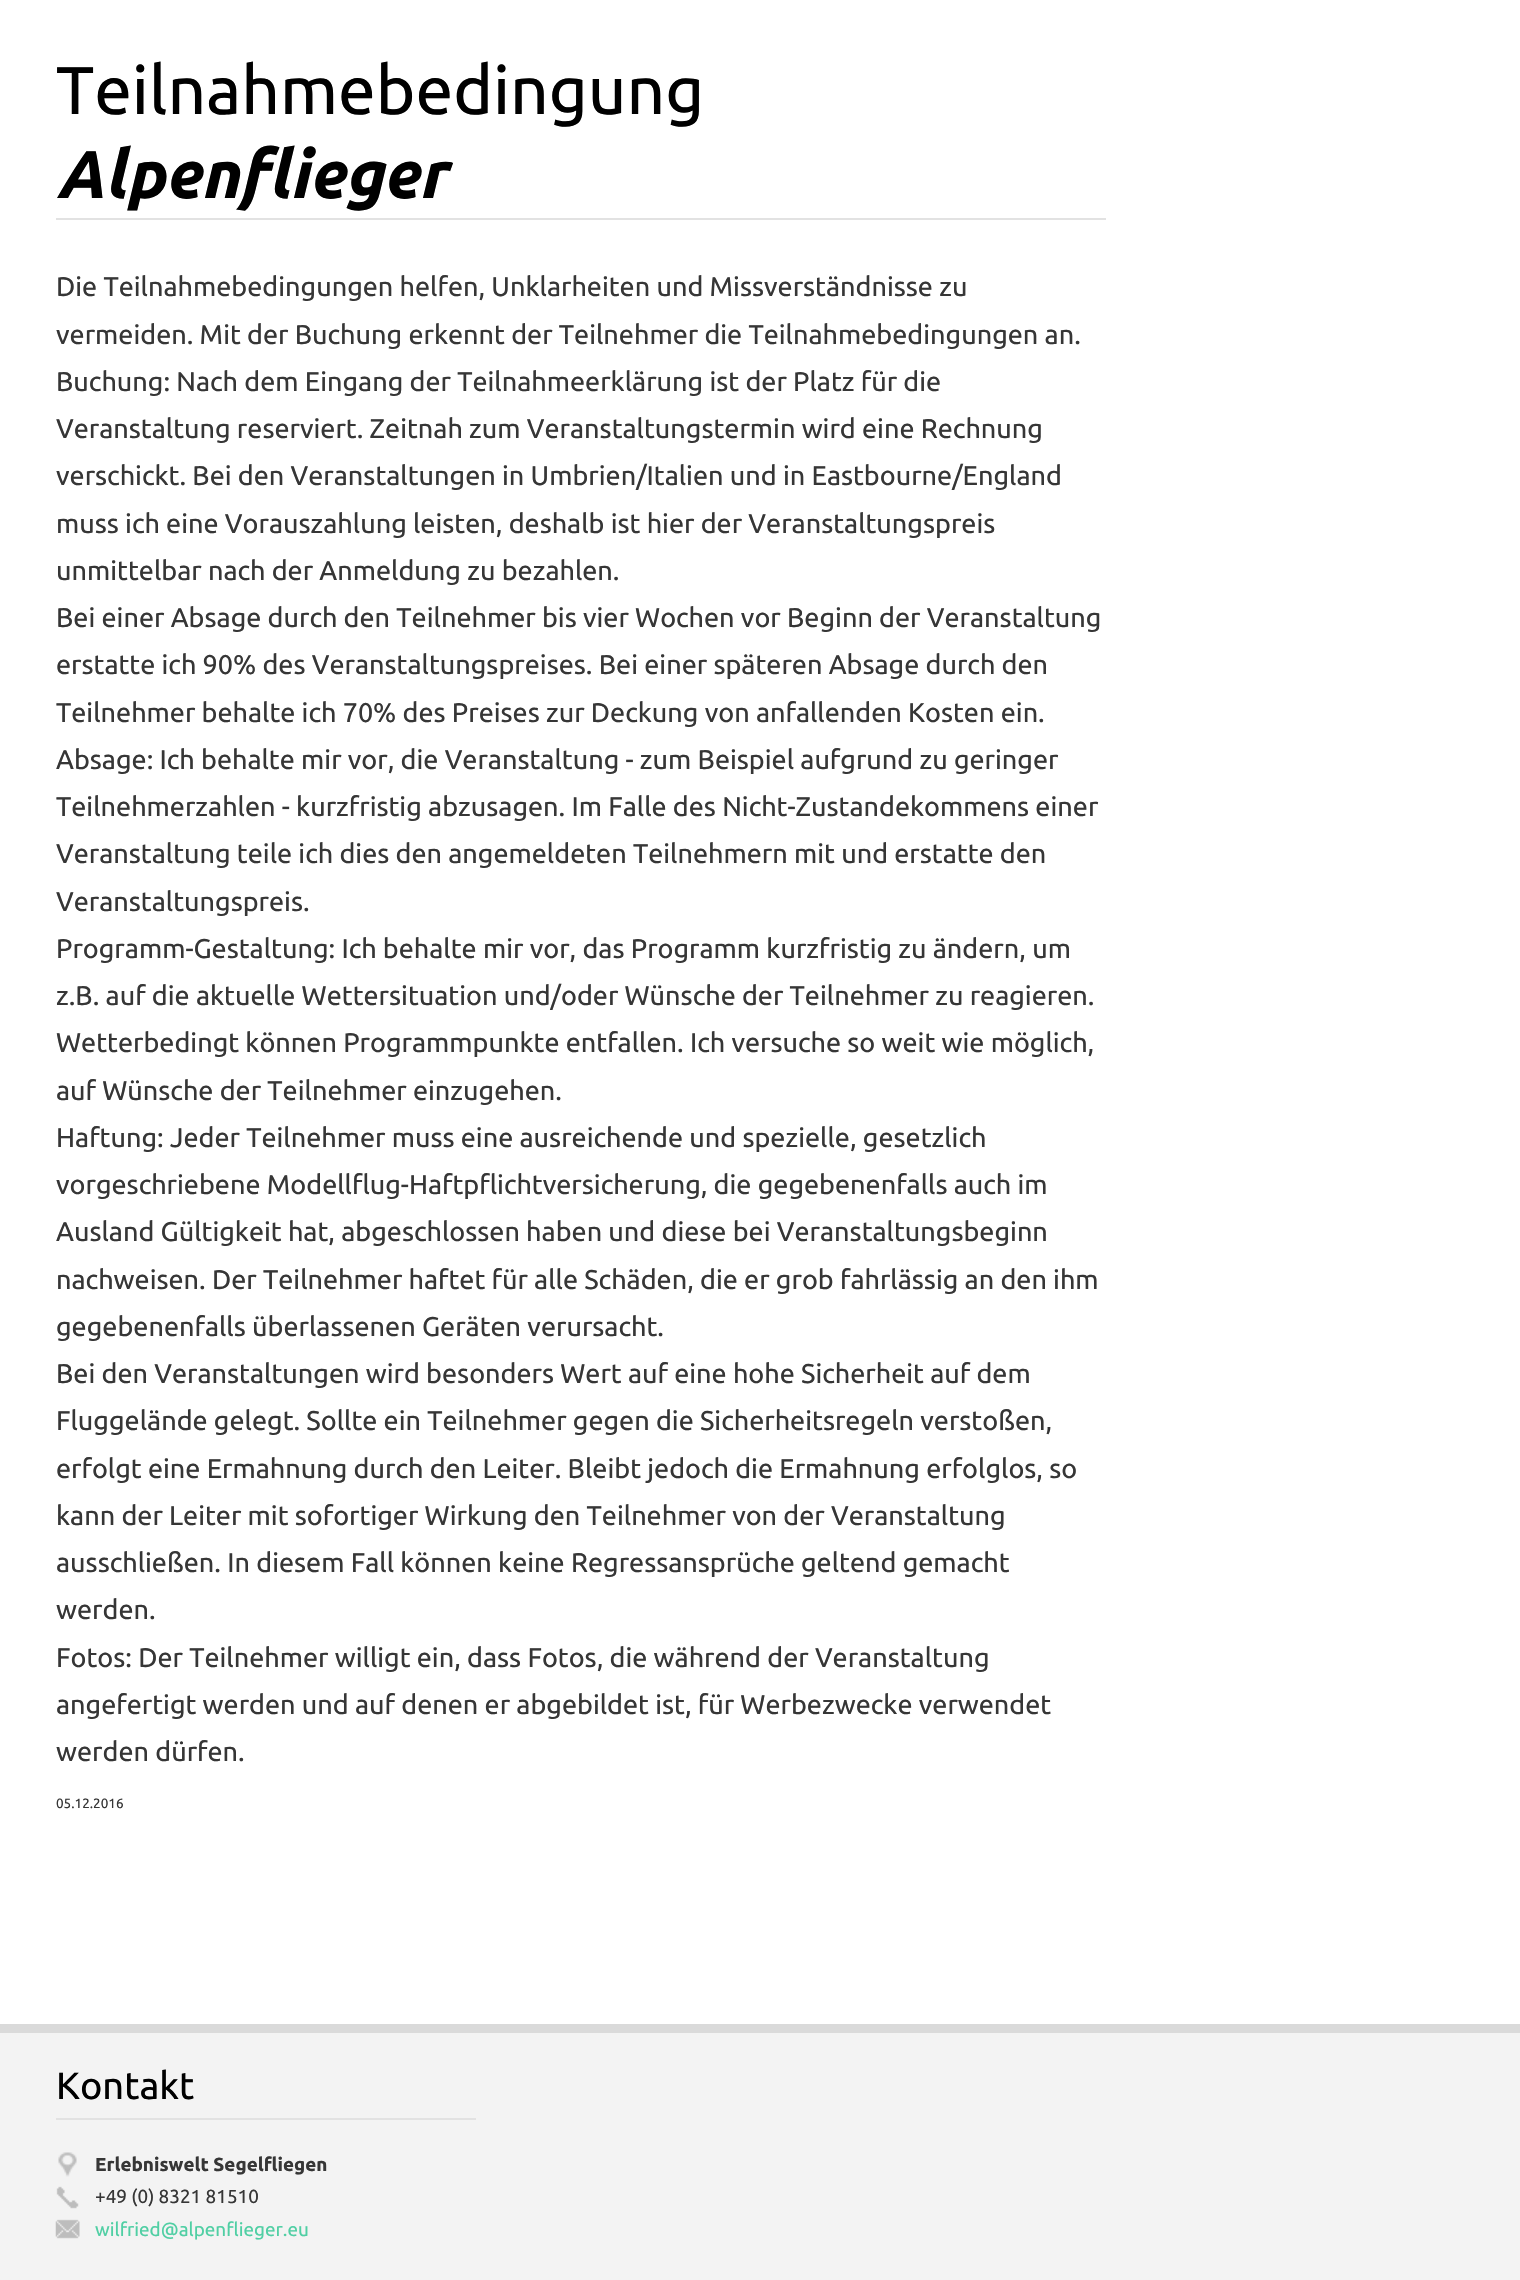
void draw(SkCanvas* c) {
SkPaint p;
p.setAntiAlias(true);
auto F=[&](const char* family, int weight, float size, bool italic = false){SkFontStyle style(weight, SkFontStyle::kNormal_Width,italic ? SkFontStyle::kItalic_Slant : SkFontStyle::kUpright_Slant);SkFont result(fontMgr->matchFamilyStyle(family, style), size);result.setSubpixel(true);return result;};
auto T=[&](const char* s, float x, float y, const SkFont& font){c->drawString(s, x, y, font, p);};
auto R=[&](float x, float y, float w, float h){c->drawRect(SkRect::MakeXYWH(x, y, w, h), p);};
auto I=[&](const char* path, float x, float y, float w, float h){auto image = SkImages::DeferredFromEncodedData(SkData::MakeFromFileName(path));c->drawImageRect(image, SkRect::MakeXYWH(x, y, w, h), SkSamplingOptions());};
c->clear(0xffffffff);
p.setColor(0xffe2e2e2);
R(56,218,1050,2);
auto f1 = F("Ubuntu",400,67.5);
p.setColor(0xff000000);
T("Teilnahmebedingung",56,114,f1);
auto f2 = F("Ubuntu",700,67.5,true);
T("Alpenflieger",56,198,f2);
auto f3 = F("Ubuntu",400,27);
p.setColor(0xff363636);
T("Die Teilnahmebedingungen helfen, Unklarheiten und Missverständnisse zu",56,296,f3);
T("vermeiden. Mit der Buchung erkennt der Teilnehmer die Teilnahmebedingungen an.",56,344,f3);
T("Buchung: Nach dem Eingang der Teilnahmeerklärung ist der Platz für die",56,391,f3);
T("Veranstaltung reserviert. Zeitnah zum Veranstaltungstermin wird eine Rechnung",56,438,f3);
T("verschickt. Bei den Veranstaltungen in Umbrien/Italien und in Eastbourne/England",56,485,f3);
T("muss ich eine Vorauszahlung leisten, deshalb ist hier der Veranstaltungspreis",56,533,f3);
T("unmittelbar nach der Anmeldung zu bezahlen.",56,580,f3);
T("Bei einer Absage durch den Teilnehmer bis vier Wochen vor Beginn der Veranstaltung",56,627,f3);
T("erstatte ich 90% des Veranstaltungspreises. Bei einer späteren Absage durch den",56,674,f3);
T("Teilnehmer behalte ich 70% des Preises zur Deckung von anfallenden Kosten ein.",56,722,f3);
T("Absage: Ich behalte mir vor, die Veranstaltung - zum Beispiel aufgrund zu geringer",56,769,f3);
T("Teilnehmerzahlen - kurzfristig abzusagen. Im Falle des Nicht-Zustandekommens einer",56,816,f3);
T("Veranstaltung teile ich dies den angemeldeten Teilnehmern mit und erstatte den",56,863,f3);
T("Veranstaltungspreis.",56,911,f3);
T("Programm-Gestaltung: Ich behalte mir vor, das Programm kurzfristig zu ändern, um",56,958,f3);
T("z.B. auf die aktuelle Wettersituation und/oder Wünsche der Teilnehmer zu reagieren.",56,1005,f3);
T("Wetterbedingt können Programmpunkte entfallen. Ich versuche so weit wie möglich,",56,1052,f3);
T("auf Wünsche der Teilnehmer einzugehen.",56,1100,f3);
T("Haftung: Jeder Teilnehmer muss eine ausreichende und spezielle, gesetzlich",56,1147,f3);
T("vorgeschriebene Modellflug-Haftpflichtversicherung, die gegebenenfalls auch im",56,1194,f3);
T("Ausland Gültigkeit hat, abgeschlossen haben und diese bei Veranstaltungsbeginn",56,1241,f3);
T("nachweisen. Der Teilnehmer haftet für alle Schäden, die er grob fahrlässig an den ihm",56,1289,f3);
T("gegebenenfalls überlassenen Geräten verursacht.",56,1336,f3);
T("Bei den Veranstaltungen wird besonders Wert auf eine hohe Sicherheit auf dem",56,1383,f3);
T("Fluggelände gelegt. Sollte ein Teilnehmer gegen die Sicherheitsregeln verstoßen,",56,1430,f3);
T("erfolgt eine Ermahnung durch den Leiter. Bleibt jedoch die Ermahnung erfolglos, so",56,1478,f3);
T("kann der Leiter mit sofortiger Wirkung den Teilnehmer von der Veranstaltung",56,1525,f3);
T("ausschließen. In diesem Fall können keine Regressansprüche geltend gemacht",56,1572,f3);
T("werden.",56,1619,f3);
T("Fotos: Der Teilnehmer willigt ein, dass Fotos, die während der Veranstaltung",56,1667,f3);
T("angefertigt werden und auf denen er abgebildet ist, für Werbezwecke verwendet",56,1714,f3);
T("werden dürfen.",56,1761,f3);
auto f4 = F("Ubuntu",400,13.5);
T("05.12.2016",56,1808,f4);
p.setColor(0xfff3f3f3);
R(0,2033,1520,247);
p.setColor(0xffdadada);
R(0,2024,1520,9);
p.setColor(0xffe2e2e2);
R(56,2118,420,2);
auto f5 = F("Ubuntu",400,38);
p.setColor(0xff000000);
T("Kontakt",56,2099,f5);
I("1.png",58,2152,19,25);
auto f6 = F("Ubuntu",700,18.9);
p.setColor(0xff363636);
T("Erlebniswelt Segelfliegen",95,2171,f6);
I("2.png",56,2186,23,23);
auto f7 = F("Ubuntu",400,18.9);
T("+49 (0) 8321 81510",95,2203,f7);
I("3.png",55,2219,25,20);
p.setColor(0xff50cfa4);
T("wilfried@alpenflieger.eu",95,2236,f7);
}
